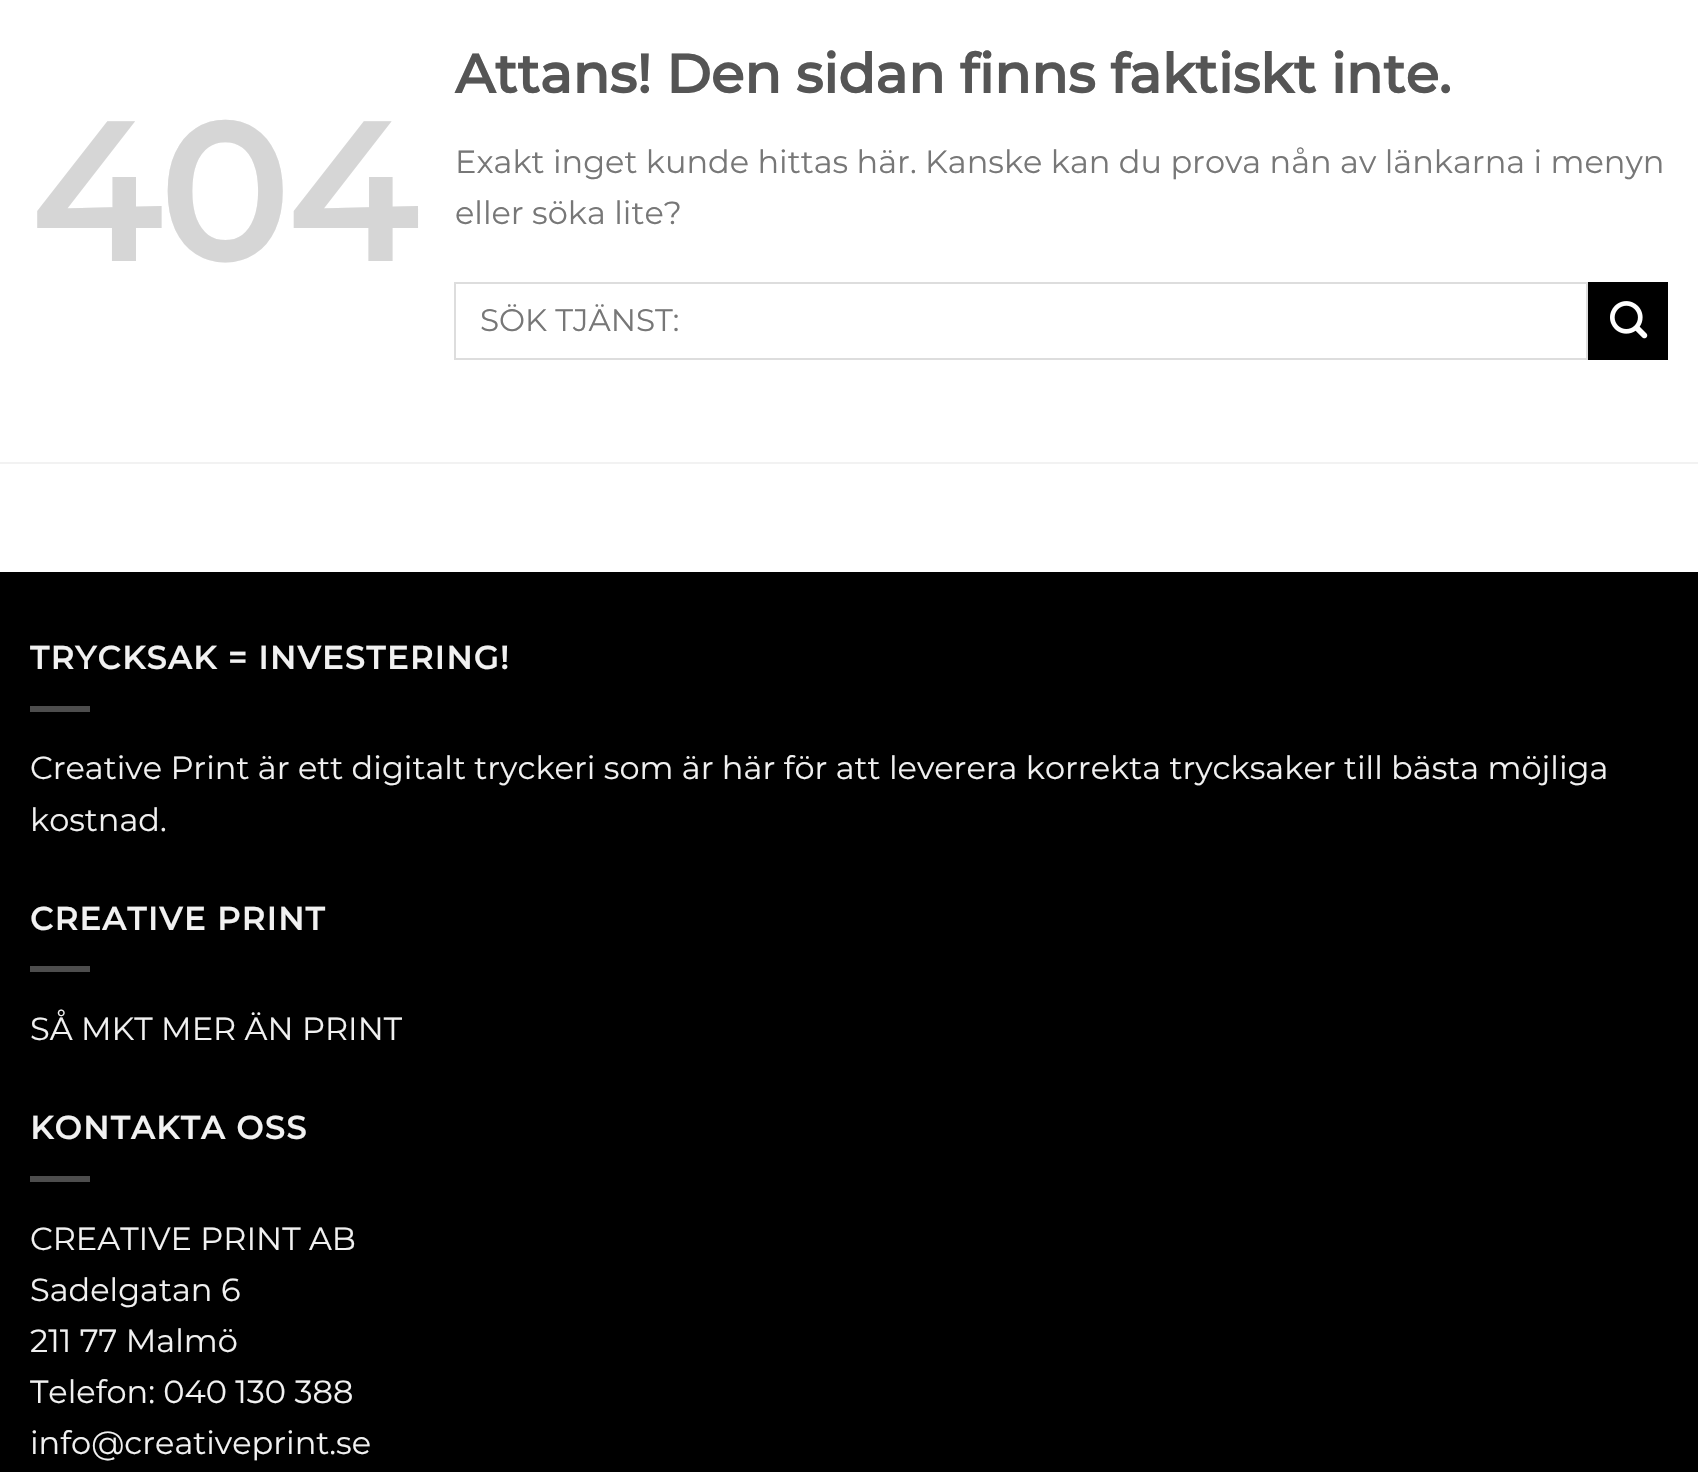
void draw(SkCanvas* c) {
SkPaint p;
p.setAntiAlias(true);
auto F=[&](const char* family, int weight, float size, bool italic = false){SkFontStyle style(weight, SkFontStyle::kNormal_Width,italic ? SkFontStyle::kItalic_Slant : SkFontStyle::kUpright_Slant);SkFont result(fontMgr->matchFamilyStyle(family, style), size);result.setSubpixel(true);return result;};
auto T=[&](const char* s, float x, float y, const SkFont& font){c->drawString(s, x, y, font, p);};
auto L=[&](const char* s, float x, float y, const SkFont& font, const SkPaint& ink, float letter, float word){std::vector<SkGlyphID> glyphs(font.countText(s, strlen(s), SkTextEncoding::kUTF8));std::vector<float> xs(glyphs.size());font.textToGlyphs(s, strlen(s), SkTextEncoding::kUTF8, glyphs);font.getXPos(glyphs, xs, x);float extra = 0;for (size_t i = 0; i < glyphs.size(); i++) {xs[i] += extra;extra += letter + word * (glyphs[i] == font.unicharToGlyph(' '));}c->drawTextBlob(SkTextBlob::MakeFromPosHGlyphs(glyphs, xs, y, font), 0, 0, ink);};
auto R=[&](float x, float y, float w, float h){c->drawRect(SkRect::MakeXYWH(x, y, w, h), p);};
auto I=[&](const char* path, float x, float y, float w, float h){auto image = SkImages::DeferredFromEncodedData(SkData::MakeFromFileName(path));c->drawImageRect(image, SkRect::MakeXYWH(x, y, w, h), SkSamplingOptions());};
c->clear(0xffffffff);
auto f1 = F("Montserrat",700,192);
p.setColor(0xffd6d6d6);
T("404",30,261,f1);
auto f2 = F("Montserrat",700,54.4);
p.setColor(0xff555555);
T("Attans! Den sidan finns faktiskt inte.",455,93,f2);
auto f3 = F("Montserrat",400,32);
p.setColor(0xff777777);
T("Exakt inget kunde hittas här. Kanske kan du prova nån av länkarna i menyn",455,173,f3);
T("eller söka lite?",455,224,f3);
p.setStroke(true);
p.setStrokeWidth(2);
p.setColor(0xffdddddd);
c->drawRect(SkRect::MakeXYWH(455,283,1132,76),p);
auto f4 = F("Montserrat",400,31);
p.setStroke(false);
p.setColor(0xff777777);
T("SÖK TJÄNST:",480,331,f4);
p.setColor(0xff000000);
R(1588,282,80,78);
I("1.png",1610,301,38,38);
p.setColor(0xfff2f2f2);
R(0,462,1698,2);
p.setColor(0xff000000);
R(0,572,1698,900);
auto f5 = F("Montserrat",700,32);
p.setColor(0xfff1f1f1);
L("TRYCKSAK = INVESTERING!",30,669,f5,p,1.6,0);
p.setColor(0xff4d4d4d);
R(30,706,60,6);
p.setColor(0xfff1f1f1);
T("Creative Print är ett digitalt tryckeri som är här för att leverera korrekta trycksaker till bästa möjliga",30,779,f3);
T("kostnad.",30,831,f3);
L("CREATIVE PRINT",30,930,f5,p,1.6,0);
p.setColor(0xff4d4d4d);
R(30,966,60,6);
p.setColor(0xfff1f1f1);
T("SÅ MKT MER ÄN PRINT",30,1040,f3);
L("KONTAKTA OSS",30,1139,f5,p,1.6,0);
p.setColor(0xff4d4d4d);
R(30,1176,60,6);
p.setColor(0xfff1f1f1);
T("CREATIVE PRINT AB",30,1250,f3);
T("Sadelgatan 6",30,1301,f3);
T("211 77 Malmö",30,1352,f3);
T("Telefon: 040 130 388",30,1403,f3);
T("info@creativeprint.se",30,1454,f3);
}
